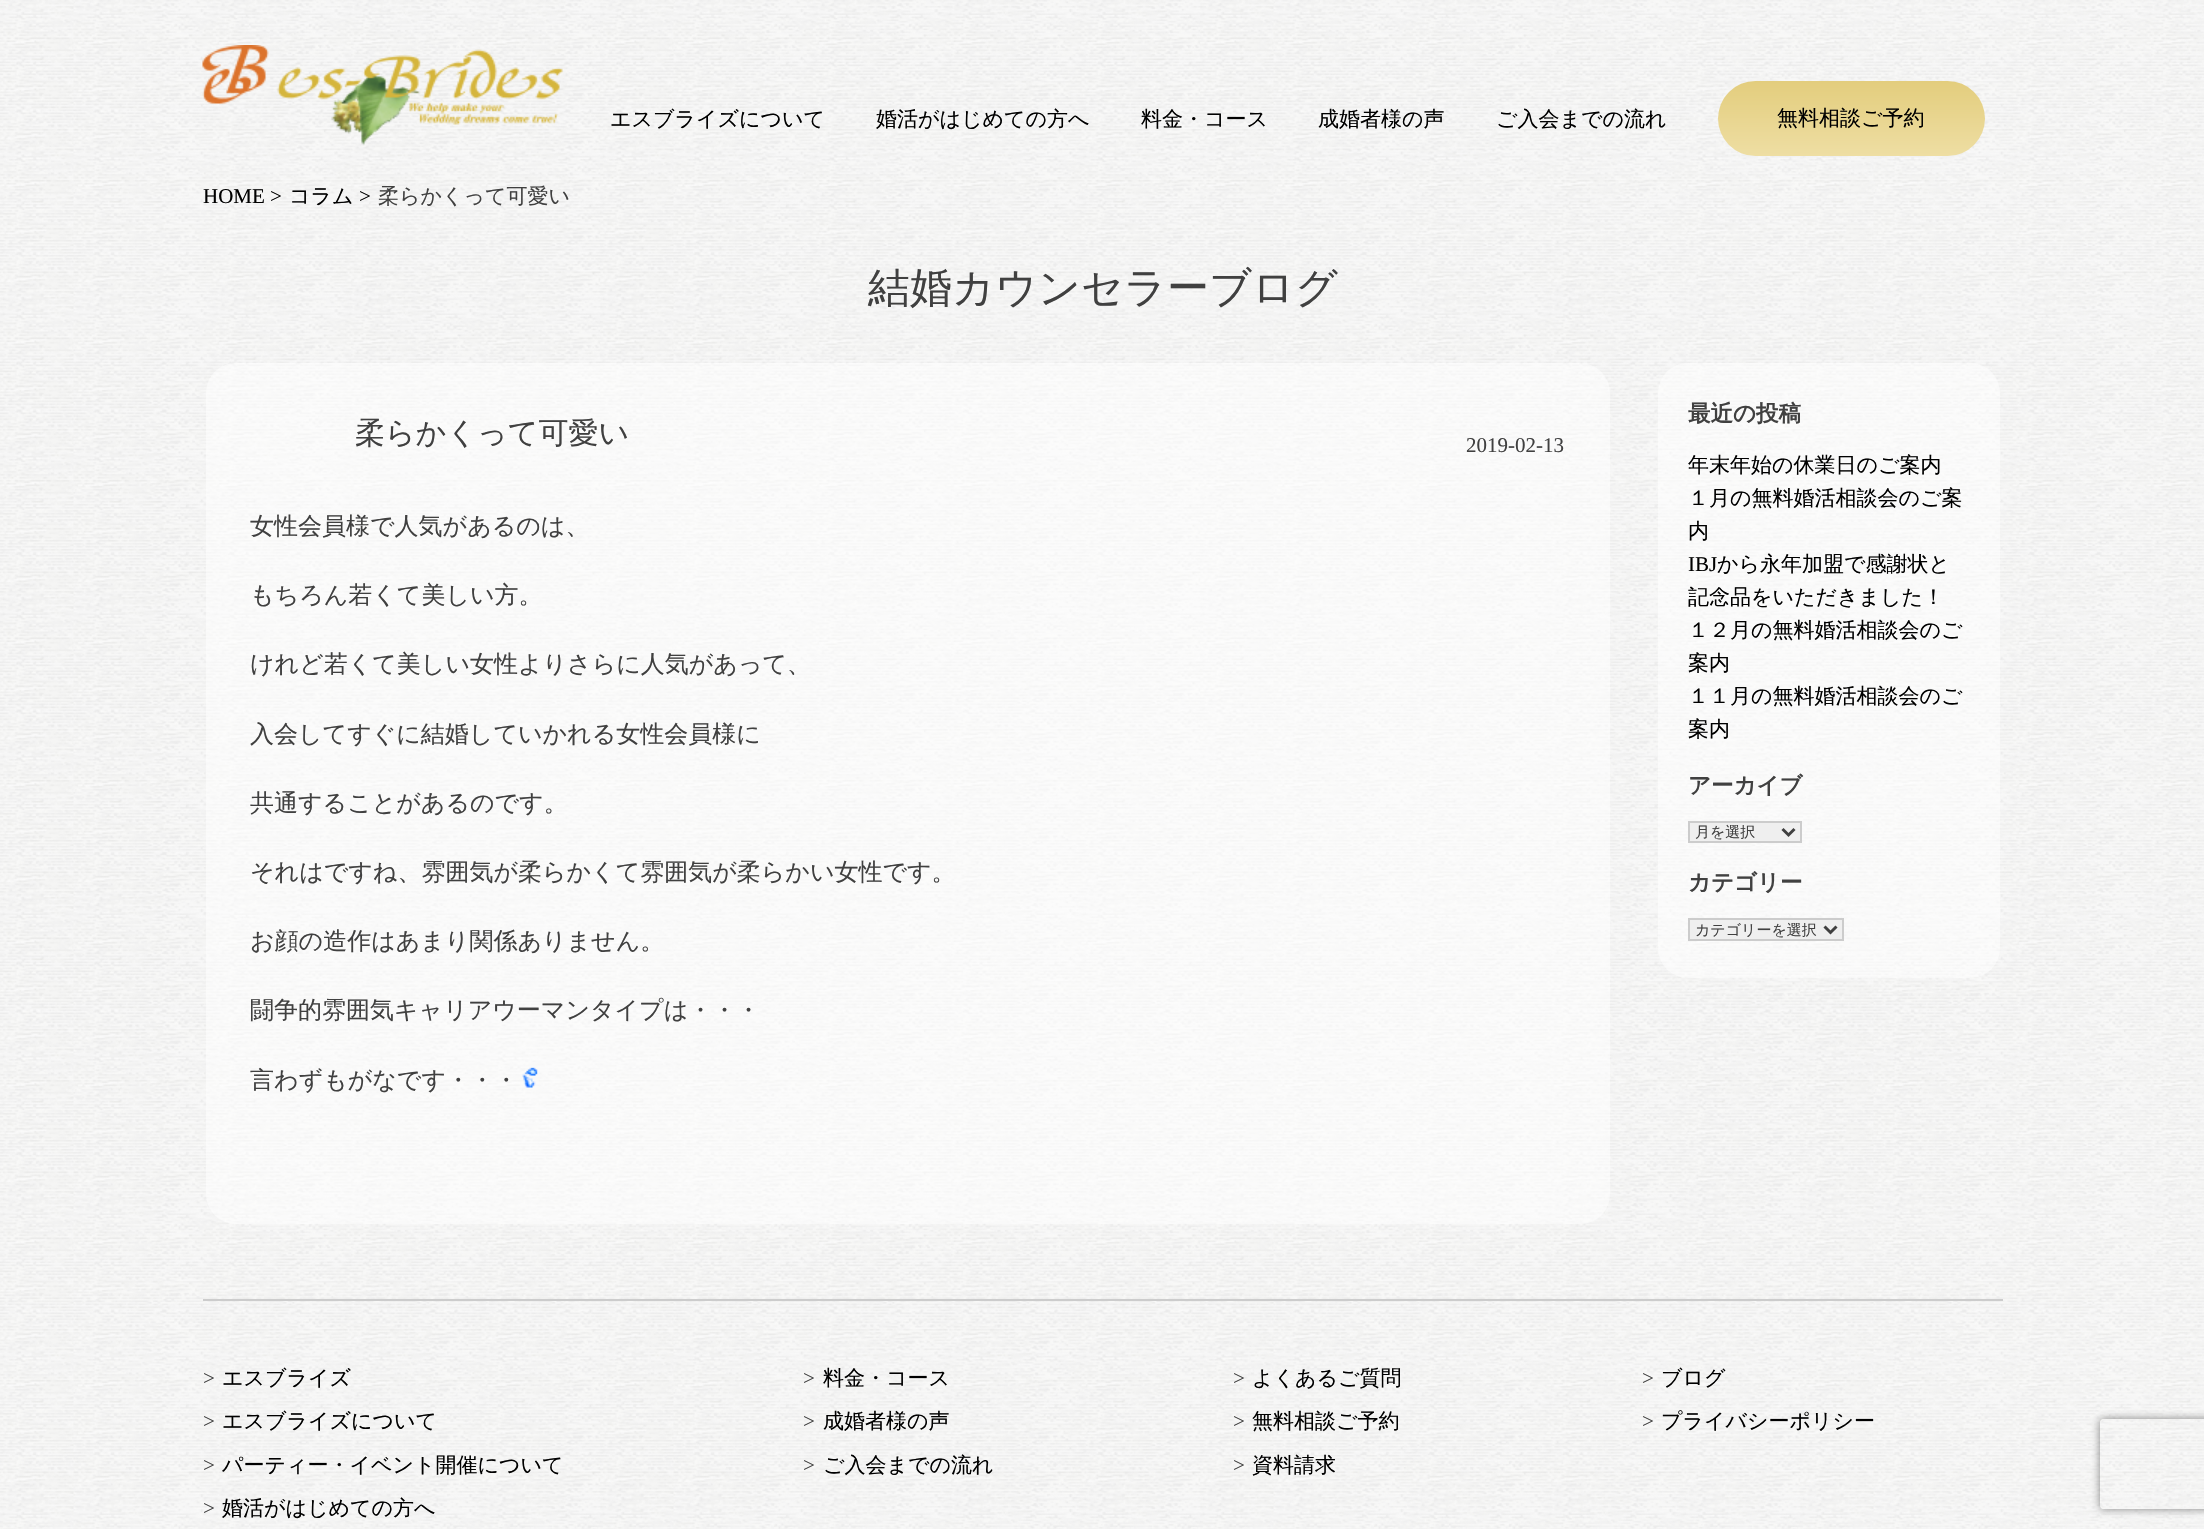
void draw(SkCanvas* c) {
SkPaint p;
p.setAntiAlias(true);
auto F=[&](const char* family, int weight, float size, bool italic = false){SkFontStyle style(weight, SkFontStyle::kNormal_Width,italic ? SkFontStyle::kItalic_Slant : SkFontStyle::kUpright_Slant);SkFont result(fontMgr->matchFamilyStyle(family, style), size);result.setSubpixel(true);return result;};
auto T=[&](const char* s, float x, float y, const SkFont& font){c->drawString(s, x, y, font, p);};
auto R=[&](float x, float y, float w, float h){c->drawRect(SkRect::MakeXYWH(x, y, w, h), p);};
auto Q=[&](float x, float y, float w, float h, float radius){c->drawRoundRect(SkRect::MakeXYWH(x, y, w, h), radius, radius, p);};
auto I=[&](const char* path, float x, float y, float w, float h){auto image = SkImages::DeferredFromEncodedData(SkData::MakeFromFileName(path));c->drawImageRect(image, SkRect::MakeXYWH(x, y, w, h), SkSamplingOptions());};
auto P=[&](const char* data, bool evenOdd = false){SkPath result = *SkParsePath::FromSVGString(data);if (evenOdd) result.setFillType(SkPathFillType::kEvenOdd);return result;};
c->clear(0xffffffff);
I("1.png",0,0,2204,1529);
I("2.png",202,45,361,101);
auto f1 = F("WenQuanYi Zen Hei",500,21);
p.setColor(0xff000000);
T("エスブライズについて",610,126,f1);
T("婚活がはじめての方へ",876,126,f1);
T("料金・コース",1141,126,f1);
T("成婚者様の声",1318,126,f1);
T("ご入会までの流れ",1496,126,f1);
{
const SkColor colors[] = {0xffe3cd7d,0xffeedea3};
const float stops[] = {0,1};
const SkPoint ends[] = {{1851,81}, {1851,156}};
p.setShader(SkGradientShader::MakeLinear(ends, colors, stops, 2, SkTileMode::kClamp));
p.setAlpha(255);
}
Q(1718,81,267,75,37.5);
p.setShader(nullptr);
p.setColor(0xff000000);
T("無料相談ご予約",1777,125,f1);
auto f2 = F("Liberation Serif",400,21);
T("HOME >",203,203,f2);
T("コラム",289,203,f1);
T(">",359,203,f2);
p.setColor(0xff404040);
T("柔らかくって可愛い",378,203,f1);
auto f3 = F("WenQuanYi Zen Hei",500,42);
T("結婚カウンセラーブログ",868,302,f3);
p.setColor(0x80ffffff);
Q(206,363,1404,861,30);
auto f4 = F("WenQuanYi Zen Hei",500,30);
p.setColor(0xff404040);
T("柔らかくって可愛い",355,443,f4);
T("2019-02-13",1466,452,f2);
auto f5 = F("WenQuanYi Zen Hei",500,24);
T("女性会員様で人気があるのは、",250,534,f5);
T("もちろん若くて美しい方。",250,603,f5);
T("けれど若くて美しい女性よりさらに人気があって、",250,672,f5);
T("入会してすぐに結婚していかれる女性会員様に",250,742,f5);
T("共通することがあるのです。",250,811,f5);
T("それはですね、雰囲気が柔らかくて雰囲気が柔らかい女性です。",250,880,f5);
T("お顔の造作はあまり関係ありません。",250,949,f5);
T("闘争的雰囲気キャリアウーマンタイプは・・・",250,1018,f5);
T("言わずもがなです・・・",250,1088,f5);
I("3.png",522,1067,16,21);
p.setColor(0x80ffffff);
Q(1658,363,342,615,30);
auto f6 = F("WenQuanYi Zen Hei",700,22.5);
p.setColor(0xff404040);
T("最近の投稿",1688,421,f6);
p.setColor(0xff000000);
T("年末年始の休業日のご案内",1688,472,f1);
T("１月の無料婚活相談会のご案",1688,505,f1);
T("内",1688,538,f1);
T("IBJ",1688,571,f2);
T("から永年加盟で感謝状と",1717,571,f1);
T("記念品をいただきました！",1688,604,f1);
T("１２月の無料婚活相談会のご",1688,637,f1);
T("案内",1688,670,f1);
T("１１月の無料婚活相談会のご",1688,703,f1);
T("案内",1688,736,f1);
p.setColor(0xff404040);
T("アーカイブ",1688,793,f6);
p.setColor(0xffefefef);
c->drawRect(SkRect::MakeXYWH(1689,822,112,20),p);
p.setStroke(true);
p.setStrokeWidth(2);
p.setColor(0xffcccccc);
c->drawRect(SkRect::MakeXYWH(1689,822,112,20),p);
p.setStrokeWidth(3);
p.setColor(0xff404040);
c->drawPath(P("M1782.5 829l6 6l6-6"),p);
auto f7 = F("WenQuanYi Zen Hei",500,15);
p.setStroke(false);
T("月を選択",1695,837,f7);
T("カテゴリー",1688,890,f6);
p.setColor(0xffefefef);
c->drawRect(SkRect::MakeXYWH(1689,919,154,21),p);
p.setStroke(true);
p.setStrokeWidth(2);
p.setColor(0xffcccccc);
c->drawRect(SkRect::MakeXYWH(1689,919,154,21),p);
p.setStrokeWidth(3);
p.setColor(0xff404040);
c->drawPath(P("M1824.5 926.5l6 6l6-6"),p);
p.setStroke(false);
T("カテゴリーを選択",1695,935,f7);
p.setColor(0xffcccccc);
R(203,1299,1800,2);
p.setColor(0xff404040);
T(">",203,1385,f2);
p.setColor(0xff000000);
T("エスブライズ",222,1385,f1);
p.setColor(0xff404040);
T(">",203,1428,f2);
p.setColor(0xff000000);
T("エスブライズについて",222,1428,f1);
p.setColor(0xff404040);
T(">",203,1472,f2);
p.setColor(0xff000000);
T("パーティー・イベント開催について",222,1472,f1);
p.setColor(0xff404040);
T(">",203,1515,f2);
p.setColor(0xff000000);
T("婚活がはじめての方へ",222,1515,f1);
p.setColor(0xff404040);
T(">",803,1385,f2);
p.setColor(0xff000000);
T("料金・コース",823,1385,f1);
p.setColor(0xff404040);
T(">",803,1428,f2);
p.setColor(0xff000000);
T("成婚者様の声",823,1428,f1);
p.setColor(0xff404040);
T(">",803,1472,f2);
p.setColor(0xff000000);
T("ご入会までの流れ",823,1472,f1);
p.setColor(0xff404040);
T(">",1233,1385,f2);
p.setColor(0xff000000);
T("よくあるご質問",1252,1385,f1);
p.setColor(0xff404040);
T(">",1233,1428,f2);
p.setColor(0xff000000);
T("無料相談ご予約",1252,1428,f1);
p.setColor(0xff404040);
T(">",1233,1472,f2);
p.setColor(0xff000000);
T("資料請求",1252,1472,f1);
p.setColor(0xff404040);
T(">",1642,1385,f2);
p.setColor(0xff000000);
T("ブログ",1661,1385,f1);
p.setColor(0xff404040);
T(">",1642,1428,f2);
p.setColor(0xff000000);
T("プライバシーポリシー",1661,1428,f1);
c->save();
c->clipPath(P("M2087 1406h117v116h-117zm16 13h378c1.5 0 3 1.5 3 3v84c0 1.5-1.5 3-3 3h-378c-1.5 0-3-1.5-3-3v-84c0-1.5 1.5-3 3-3z",true),true);
p.setColor(0xff808080);
p.setMaskFilter(SkMaskFilter::MakeBlur(kNormal_SkBlurStyle, 4));
c->drawRoundRect(SkRect::MakeXYWH(2100,1419,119,90),3,3,p);
p.setMaskFilter(nullptr);
c->restore();
}
